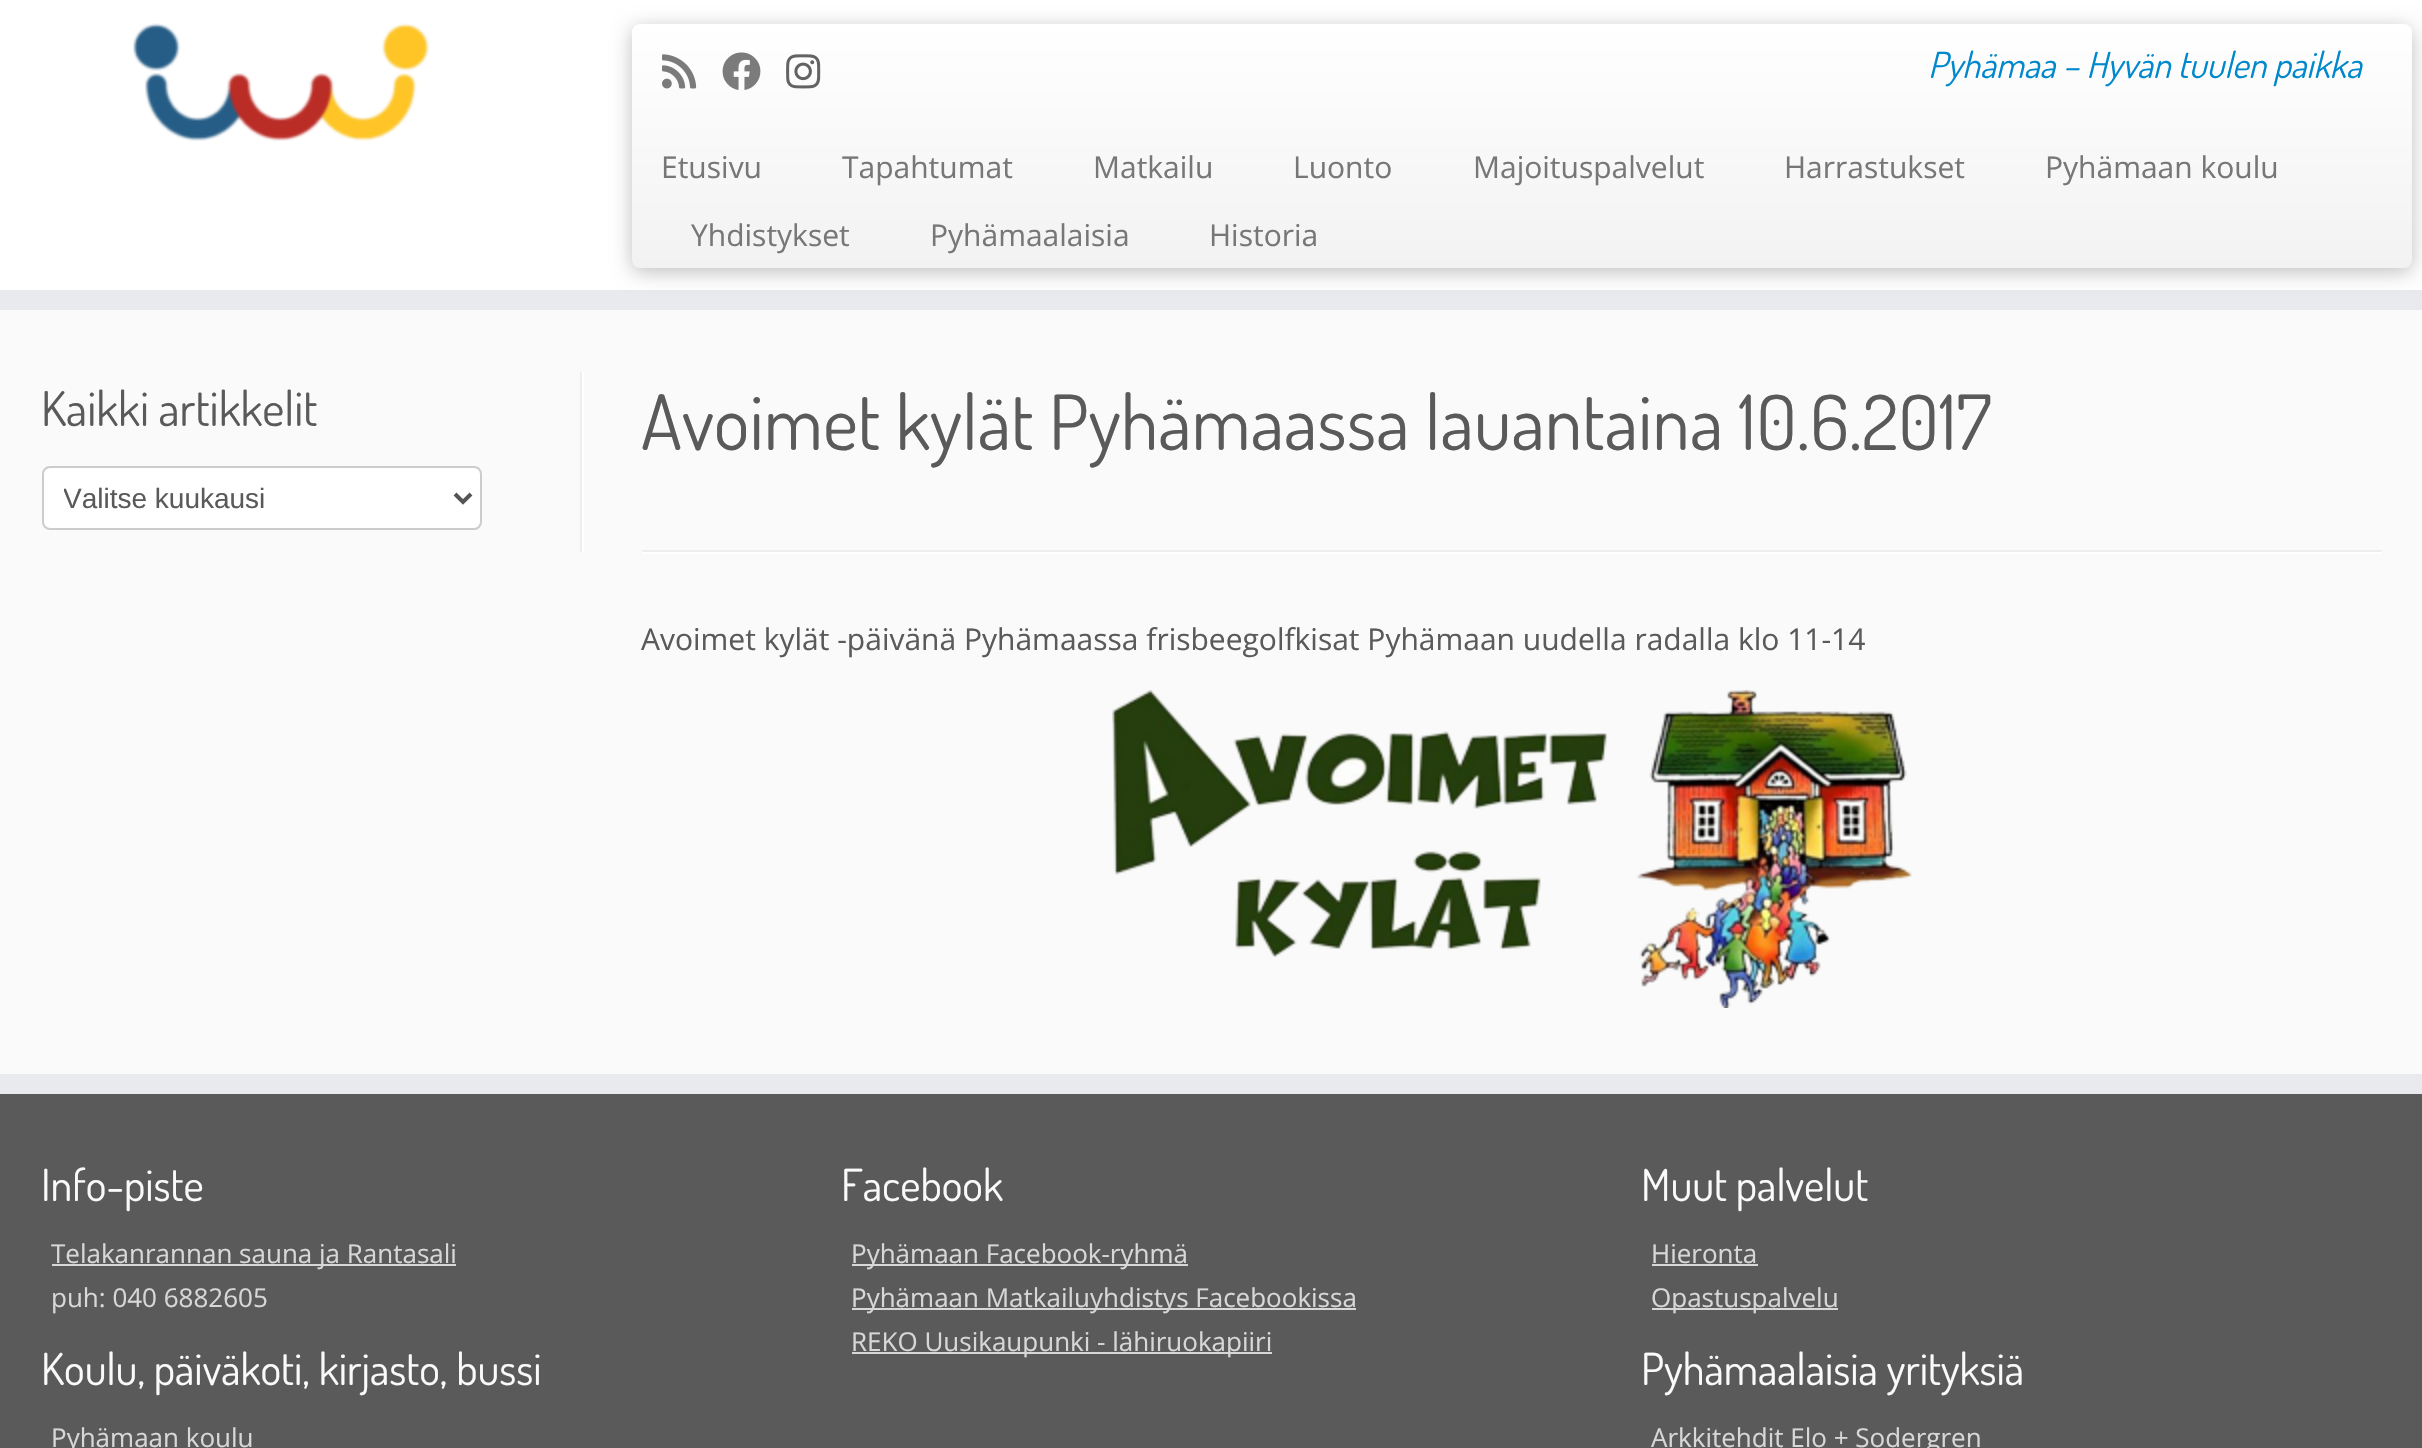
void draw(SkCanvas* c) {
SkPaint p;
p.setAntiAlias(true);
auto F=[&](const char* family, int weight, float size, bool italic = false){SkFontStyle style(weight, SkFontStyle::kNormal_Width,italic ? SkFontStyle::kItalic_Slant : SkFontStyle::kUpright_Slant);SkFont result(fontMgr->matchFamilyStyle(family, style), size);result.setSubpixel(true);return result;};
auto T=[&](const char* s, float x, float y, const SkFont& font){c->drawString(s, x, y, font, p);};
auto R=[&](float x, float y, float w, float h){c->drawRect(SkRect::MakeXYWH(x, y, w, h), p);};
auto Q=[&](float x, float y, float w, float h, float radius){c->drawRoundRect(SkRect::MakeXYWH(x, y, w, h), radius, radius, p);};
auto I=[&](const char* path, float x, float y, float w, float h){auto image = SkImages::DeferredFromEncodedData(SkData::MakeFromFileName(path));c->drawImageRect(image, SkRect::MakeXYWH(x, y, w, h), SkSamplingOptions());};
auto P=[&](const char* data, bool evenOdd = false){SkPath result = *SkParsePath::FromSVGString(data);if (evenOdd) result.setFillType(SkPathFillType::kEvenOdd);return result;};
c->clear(0xfffafafa);
p.setColor(0xffffffff);
R(0,0,2422,290);
p.setColor(0xffe9eaee);
R(0,290,2422,20);
I("1.png",133,23,297,118);
p.setColor(0x40000000);
p.setMaskFilter(SkMaskFilter::MakeBlur(kNormal_SkBlurStyle, 10));
c->drawRoundRect(SkRect::MakeXYWH(632,28,1780,244),8,8,p);
p.setMaskFilter(nullptr);
{
const SkColor colors[] = {0xffffffff,0xfff2f2f2};
const float stops[] = {0,1};
const SkPoint ends[] = {{1522,24}, {1522,268}};
p.setShader(SkGradientShader::MakeLinear(ends, colors, stops, 2, SkTileMode::kClamp));
p.setAlpha(255);
}
Q(632,24,1780,244,8);
I("2.png",662,54,35,35);
I("3.png",722,52,39,38);
I("4.png",786,54,35,35);
auto f1 = F("Dosis",400,36,true);
p.setShader(nullptr);
p.setColor(0xff0088cc);
T("Pyhämaa – Hyvän tuulen paikka",1928,78,f1);
auto f2 = F("Open Sans",400,30);
p.setColor(0xff777777);
T("Etusivu",661,178,f2);
T("Tapahtumat",842,178,f2);
T("Matkailu",1093,178,f2);
T("Luonto",1293,178,f2);
T("Majoituspalvelut",1473,178,f2);
T("Harrastukset",1784,178,f2);
T("Pyhämaan koulu",2045,178,f2);
T("Yhdistykset",691,246,f2);
T("Pyhämaalaisia",930,246,f2);
T("Historia",1209,246,f2);
p.setColor(0xffeeeeee);
R(580,372,2,180);
auto f3 = F("Dosis",400,48);
p.setColor(0xff5a5a5a);
T("Kaikki artikkelit",41,426,f3);
p.setColor(0xffffffff);
c->drawRoundRect(SkRect::MakeXYWH(43,467,438,62),7,7,p);
p.setStroke(true);
p.setStrokeWidth(2);
p.setColor(0xffcccccc);
c->drawRoundRect(SkRect::MakeXYWH(43,467,438,62),7,7,p);
p.setStrokeWidth(4);
p.setColor(0xff555555);
c->drawPath(P("M455 494l8 8l8-8"),p);
c->save();
c->clipRect(SkRect::MakeXYWH(64,480,372,36));
auto f4 = F("Liberation Sans",400,28);
p.setStroke(false);
p.setColor(0xff5a5a5a);
T("Valitse kuukausi",63,508,f4);
c->restore();
p.setColor(0xffffffff);
R(582,372,2,180);
auto f5 = F("Dosis",400,76);
p.setColor(0xff5a5a5a);
T("Avoimet kylät Pyhämaassa lauantaina 10.6.2017",641,450,f5);
p.setColor(0xffeeeeee);
R(642,550,1740,2);
p.setColor(0xffffffff);
R(642,552,1740,2);
p.setColor(0xff5a5a5a);
T("Avoimet kylät -päivänä Pyhämaassa frisbeegolfkisat Pyhämaan uudella radalla klo 11-14",641,650,f2);
I("5.png",1112,690,800,318);
R(0,1094,2422,354);
p.setColor(0xffe9eaee);
R(0,1074,2422,20);
auto f6 = F("Dosis",400,44);
p.setColor(0xfffafafa);
T("Info-piste",41,1201,f6);
p.setColor(0xffd7d7d7);
R(52,1264,404,2);
auto f7 = F("Open Sans",400,26);
T("Telakanrannan sauna ja Rantasali",51,1263,f7);
T("puh: 040 6882605",51,1307,f7);
p.setColor(0xfffafafa);
T("Koulu, päiväkoti, kirjasto, bussi",41,1385,f6);
p.setColor(0xffd7d7d7);
T("Pyhämaan koulu",51,1447,f7);
p.setColor(0xfffafafa);
T("Facebook",841,1201,f6);
p.setColor(0xffd7d7d7);
R(852,1264,336,2);
T("Pyhämaan Facebook-ryhmä",851,1263,f7);
R(852,1308,504,2);
T("Pyhämaan Matkailuyhdistys Facebookissa",851,1307,f7);
R(852,1352,420,2);
T("REKO Uusikaupunki - lähiruokapiiri",851,1351,f7);
p.setColor(0xfffafafa);
T("Muut palvelut",1641,1201,f6);
p.setColor(0xffd7d7d7);
T("Hieronta",1651,1263,f7);
R(1652,1264,106,2);
R(1652,1308,186,2);
T("Opastuspalvelu",1651,1307,f7);
p.setColor(0xfffafafa);
T("Pyhämaalaisia yrityksiä",1641,1385,f6);
p.setColor(0xffd7d7d7);
T("Arkkitehdit Elo + Sodergren",1651,1447,f7);
}
